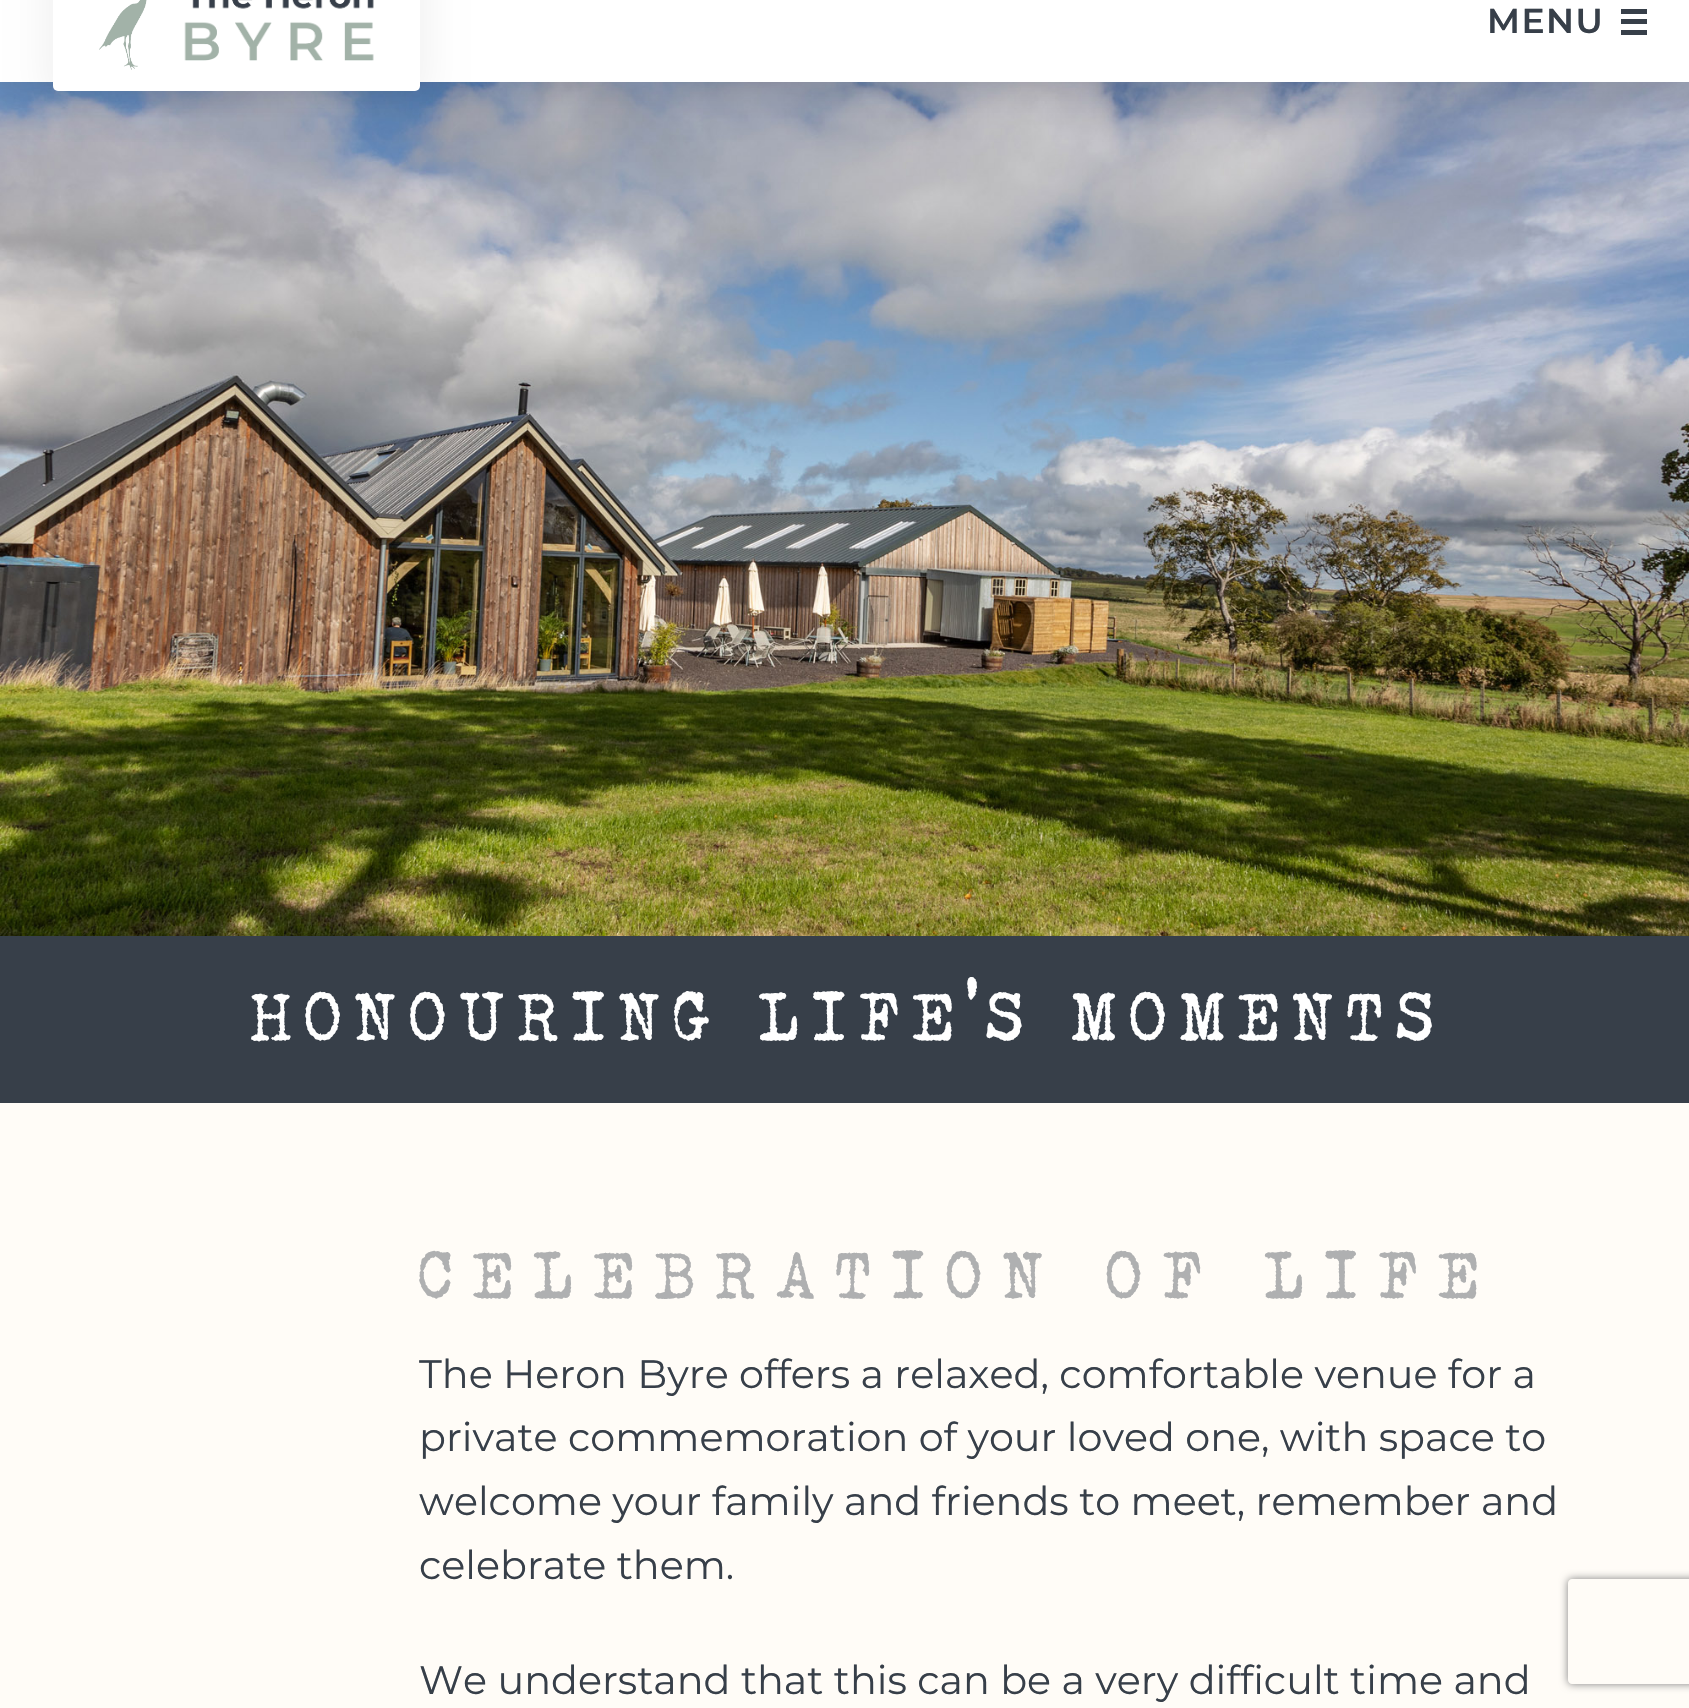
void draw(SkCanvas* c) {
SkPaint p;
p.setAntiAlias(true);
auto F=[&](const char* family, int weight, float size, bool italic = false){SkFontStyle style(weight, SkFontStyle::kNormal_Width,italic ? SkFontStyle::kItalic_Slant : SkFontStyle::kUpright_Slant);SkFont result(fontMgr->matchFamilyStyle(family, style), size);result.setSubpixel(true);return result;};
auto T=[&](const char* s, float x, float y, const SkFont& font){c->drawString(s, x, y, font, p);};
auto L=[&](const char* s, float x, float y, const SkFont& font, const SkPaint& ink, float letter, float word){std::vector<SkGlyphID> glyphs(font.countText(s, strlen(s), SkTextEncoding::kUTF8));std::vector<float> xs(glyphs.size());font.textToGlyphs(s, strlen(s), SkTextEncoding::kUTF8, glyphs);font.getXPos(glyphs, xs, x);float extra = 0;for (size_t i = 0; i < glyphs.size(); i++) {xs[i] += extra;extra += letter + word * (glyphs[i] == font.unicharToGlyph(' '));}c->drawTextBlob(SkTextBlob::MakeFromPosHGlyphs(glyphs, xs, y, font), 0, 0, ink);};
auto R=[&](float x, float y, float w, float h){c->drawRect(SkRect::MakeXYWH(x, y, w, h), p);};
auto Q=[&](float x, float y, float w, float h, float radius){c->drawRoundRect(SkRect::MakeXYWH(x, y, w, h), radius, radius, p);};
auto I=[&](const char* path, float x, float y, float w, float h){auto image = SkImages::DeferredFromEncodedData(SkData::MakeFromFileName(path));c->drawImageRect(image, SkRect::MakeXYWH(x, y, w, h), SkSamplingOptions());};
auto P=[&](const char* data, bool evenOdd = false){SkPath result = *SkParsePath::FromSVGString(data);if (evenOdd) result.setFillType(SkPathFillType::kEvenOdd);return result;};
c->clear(0xff373f49);
I("3.png",0,82,1689,854);
p.setColor(0x1a000000);
p.setMaskFilter(SkMaskFilter::MakeBlur(kNormal_SkBlurStyle, 22));
c->drawRect(SkRect::MakeXYWH(0,-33,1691,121),p);
p.setMaskFilter(nullptr);
p.setColor(0xffffffff);
R(0,0,1689,82);
p.setColor(0x0d000000);
p.setMaskFilter(SkMaskFilter::MakeBlur(kNormal_SkBlurStyle, 17.5));
c->drawRoundRect(SkRect::MakeXYWH(44,-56,385,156),14,14,p);
p.setMaskFilter(nullptr);
p.setColor(0xffffffff);
Q(53,-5,367,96,5);
I("1.png",99,0,48,70);
I("2.png",184,0,190,61);
auto f1 = F("Montserrat",600,34.5);
p.setColor(0xff373f49);
L("MENU",1487,33,f1,p,1.5,0);
R(1621,9,26,5);
R(1621,19,26,5);
R(1621,30,26,5);
auto f2 = F("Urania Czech",400,79.4);
p.setColor(0xffffffff);
L("HONOURING LIFE'S MOMENTS",251,1037,f2,p,7.9,0);
p.setColor(0xfffffcf7);
R(0,1103,1689,605);
auto f3 = F("Urania Czech",400,77.75);
p.setColor(0xffafb0b1);
L("CELEBRATION OF LIFE",419,1295,f3,p,15.5,0);
auto f4 = F("Montserrat",400,39.7);
p.setColor(0xff373f49);
T("The Heron Byre offers a relaxed, comfortable venue for a",419,1388,f4);
T("private commemoration of your loved one, with space to",419,1451,f4);
T("welcome your family and friends to meet, remember and",419,1515,f4);
T("celebrate them.",419,1579,f4);
T("We understand that this can be a very difficult time and",419,1694,f4);
c->save();
c->clipPath(P("M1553 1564h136v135h-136zm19 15h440c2 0 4 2 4 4v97c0 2-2 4-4 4h-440c-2 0-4-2-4-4v-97c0-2 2-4 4-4z",true),true);
p.setColor(0xff808080);
p.setMaskFilter(SkMaskFilter::MakeBlur(kNormal_SkBlurStyle, 4.5));
c->drawRoundRect(SkRect::MakeXYWH(1568,1579,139,105),4,4,p);
p.setMaskFilter(nullptr);
c->restore();
}
